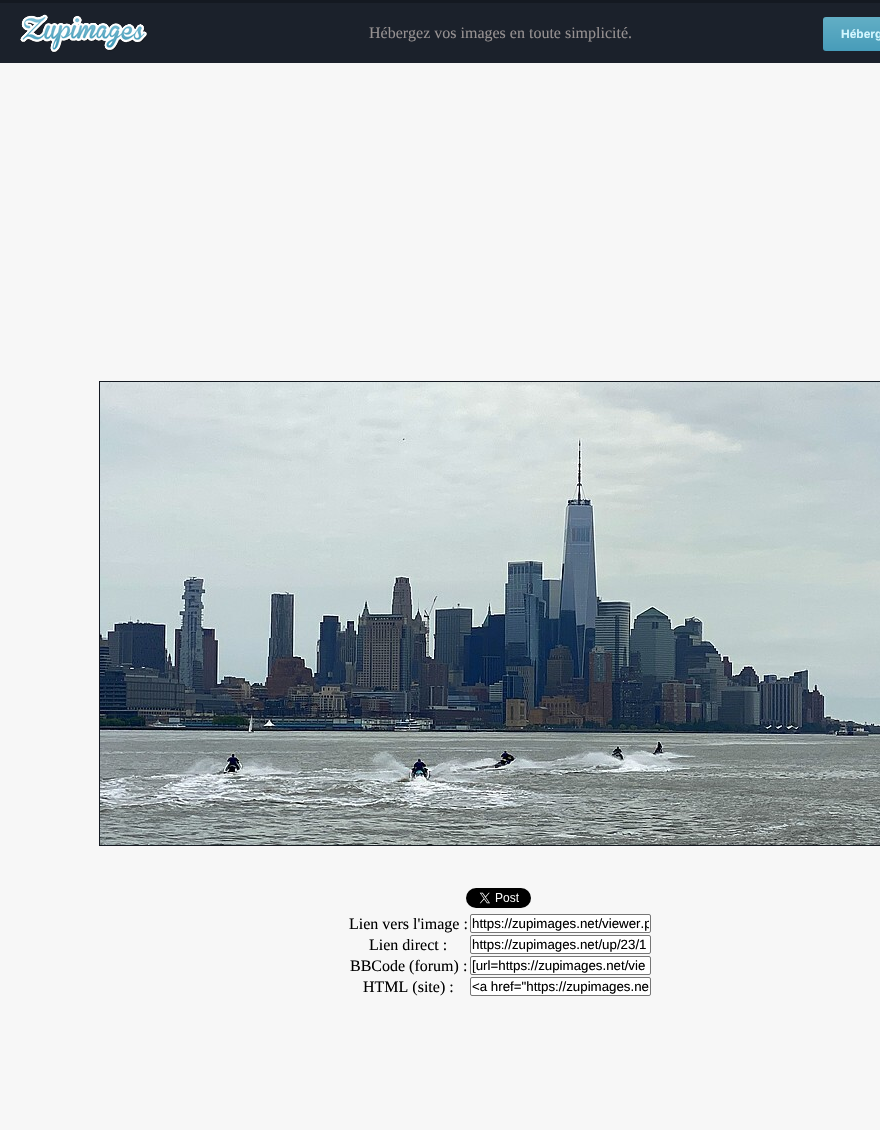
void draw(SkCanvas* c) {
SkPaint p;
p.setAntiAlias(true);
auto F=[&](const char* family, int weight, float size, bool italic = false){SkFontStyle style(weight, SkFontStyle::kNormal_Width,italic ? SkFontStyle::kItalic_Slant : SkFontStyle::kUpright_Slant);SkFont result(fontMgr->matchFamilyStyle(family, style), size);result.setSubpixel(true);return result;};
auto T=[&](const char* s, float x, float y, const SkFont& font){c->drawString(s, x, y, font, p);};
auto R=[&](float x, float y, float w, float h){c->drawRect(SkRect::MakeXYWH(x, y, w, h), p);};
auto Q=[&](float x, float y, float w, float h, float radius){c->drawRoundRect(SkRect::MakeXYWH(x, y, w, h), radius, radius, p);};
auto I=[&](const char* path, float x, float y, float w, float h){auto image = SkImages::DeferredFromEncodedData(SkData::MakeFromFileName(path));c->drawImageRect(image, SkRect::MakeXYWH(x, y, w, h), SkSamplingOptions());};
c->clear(0xfff7f7f7);
p.setColor(0xff1b212b);
R(0,3,880,60);
p.setColor(0xff141921);
R(0,0,880,3);
I("1.png",20,14,127,39);
auto f1 = F("Liberation Serif",400,16);
p.setColor(0xff969191);
T("Hébergez vos images en toute simplicité.",369,38,f1);
{
const SkColor colors[] = {0xff62aec5,0xff479cb9};
const float stops[] = {0,1};
const SkPoint ends[] = {{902,17}, {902,51}};
p.setShader(SkGradientShader::MakeLinear(ends, colors, stops, 2, SkTileMode::kClamp));
p.setAlpha(255);
}
Q(823,17,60,34,3);
auto f2 = F("Liberation Sans",700,12);
p.setShader(nullptr);
p.setColor(0xffd3f7ff);
T("Héberg",841,38,f2);
p.setStroke(true);
p.setStrokeWidth(1);
p.setColor(0xff141921);
c->drawRect(SkRect::MakeXYWH(99.5,381.5,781,464),p);
I("2.png",100,382,780,463);
I("3.png",466,888,65,20);
p.setStroke(false);
p.setColor(0xff000000);
T("Lien vers l'image :",349,929,f1);
p.setColor(0xffffffff);
c->drawRoundRect(SkRect::MakeXYWH(470.5,914.5,180,18),1.5,1.5,p);
p.setStroke(true);
p.setColor(0xff767676);
c->drawRoundRect(SkRect::MakeXYWH(470.5,914.5,180,18),1.5,1.5,p);
c->save();
c->clipRect(SkRect::MakeXYWH(472,916,177,15));
auto f3 = F("Liberation Sans",400,13.3);
p.setStroke(false);
p.setColor(0xff000000);
T("https://zupimages.net/viewer.p",472,928,f3);
c->restore();
T("Lien direct :",369,950,f1);
p.setColor(0xffffffff);
c->drawRoundRect(SkRect::MakeXYWH(470.5,935.5,180,18),1.5,1.5,p);
p.setStroke(true);
p.setColor(0xff767676);
c->drawRoundRect(SkRect::MakeXYWH(470.5,935.5,180,18),1.5,1.5,p);
p.setStroke(false);
p.setColor(0xff000000);
T("https://zupimages.net/up/23/1",472,949,f3);
T("BBCode (forum) :",350,971,f1);
p.setColor(0xffffffff);
c->drawRoundRect(SkRect::MakeXYWH(470.5,956.5,180,18),1.5,1.5,p);
p.setStroke(true);
p.setColor(0xff767676);
c->drawRoundRect(SkRect::MakeXYWH(470.5,956.5,180,18),1.5,1.5,p);
p.setStroke(false);
p.setColor(0xff000000);
T("[url=https://zupimages.net/vie",472,970,f3);
T("HTML (site) :",363,992,f1);
p.setColor(0xffffffff);
c->drawRoundRect(SkRect::MakeXYWH(470.5,977.5,180,18),1.5,1.5,p);
p.setStroke(true);
p.setColor(0xff767676);
c->drawRoundRect(SkRect::MakeXYWH(470.5,977.5,180,18),1.5,1.5,p);
p.setStroke(false);
p.setColor(0xff000000);
T("<a href=\"https://zupimages.ne",472,991,f3);
}
